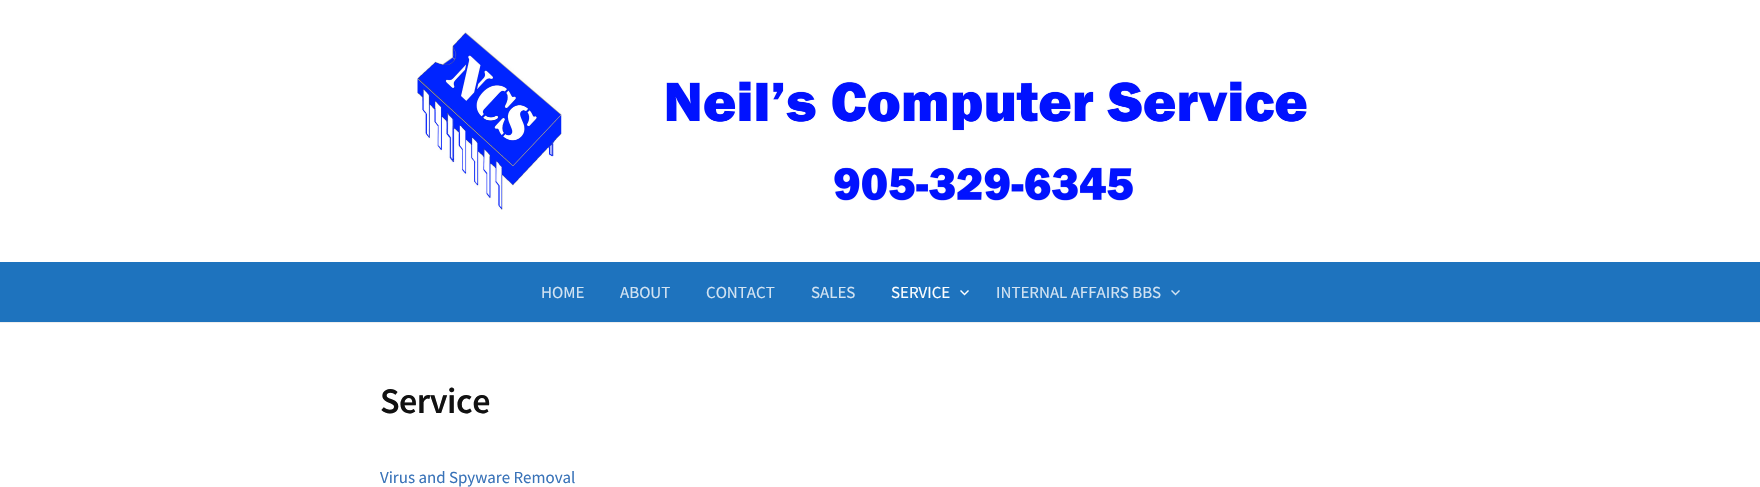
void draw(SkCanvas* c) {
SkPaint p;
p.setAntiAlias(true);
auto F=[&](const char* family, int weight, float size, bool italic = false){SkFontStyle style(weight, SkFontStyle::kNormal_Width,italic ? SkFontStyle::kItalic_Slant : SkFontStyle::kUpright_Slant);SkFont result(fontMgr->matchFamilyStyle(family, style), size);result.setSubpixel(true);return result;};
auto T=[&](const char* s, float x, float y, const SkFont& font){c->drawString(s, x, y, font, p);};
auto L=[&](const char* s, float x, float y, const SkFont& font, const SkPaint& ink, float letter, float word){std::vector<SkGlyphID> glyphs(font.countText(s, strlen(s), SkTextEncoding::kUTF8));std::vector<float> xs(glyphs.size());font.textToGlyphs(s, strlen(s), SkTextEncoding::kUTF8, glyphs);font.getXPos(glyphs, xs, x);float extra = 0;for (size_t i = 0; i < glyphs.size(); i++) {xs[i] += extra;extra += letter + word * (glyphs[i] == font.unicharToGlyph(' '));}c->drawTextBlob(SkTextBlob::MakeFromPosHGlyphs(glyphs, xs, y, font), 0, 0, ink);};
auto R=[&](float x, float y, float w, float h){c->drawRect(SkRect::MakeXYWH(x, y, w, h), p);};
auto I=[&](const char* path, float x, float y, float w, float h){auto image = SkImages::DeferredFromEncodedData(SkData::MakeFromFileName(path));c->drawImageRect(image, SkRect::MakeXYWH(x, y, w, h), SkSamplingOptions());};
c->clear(0xffffffff);
p.setColor(0xffeeeeee);
R(0,322,1760,1);
I("1.png",417,32,890,178);
p.setColor(0xff1e73be);
R(0,262,1760,60);
auto f1 = F("Source Sans Pro",400,16.9);
p.setColor(0xffd2e3f2);
T("HOME",541,298,f1);
T("ABOUT",620,298,f1);
T("CONTACT",706,298,f1);
T("SALES",811,298,f1);
p.setColor(0xffffffff);
T("SERVICE",891,298,f1);
I("2.png",960,290,9,6);
p.setColor(0xffd2e3f2);
T("INTERNAL AFFAIRS BBS",996,298,f1);
I("3.png",1171,290,9,6);
auto f2 = F("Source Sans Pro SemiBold",600,36);
p.setColor(0xff111111);
L("Service",380,413,f2,p,-.5,0);
p.setColor(0xff3872b8);
T("Virus and Spyware Removal",380,483,f1);
}
